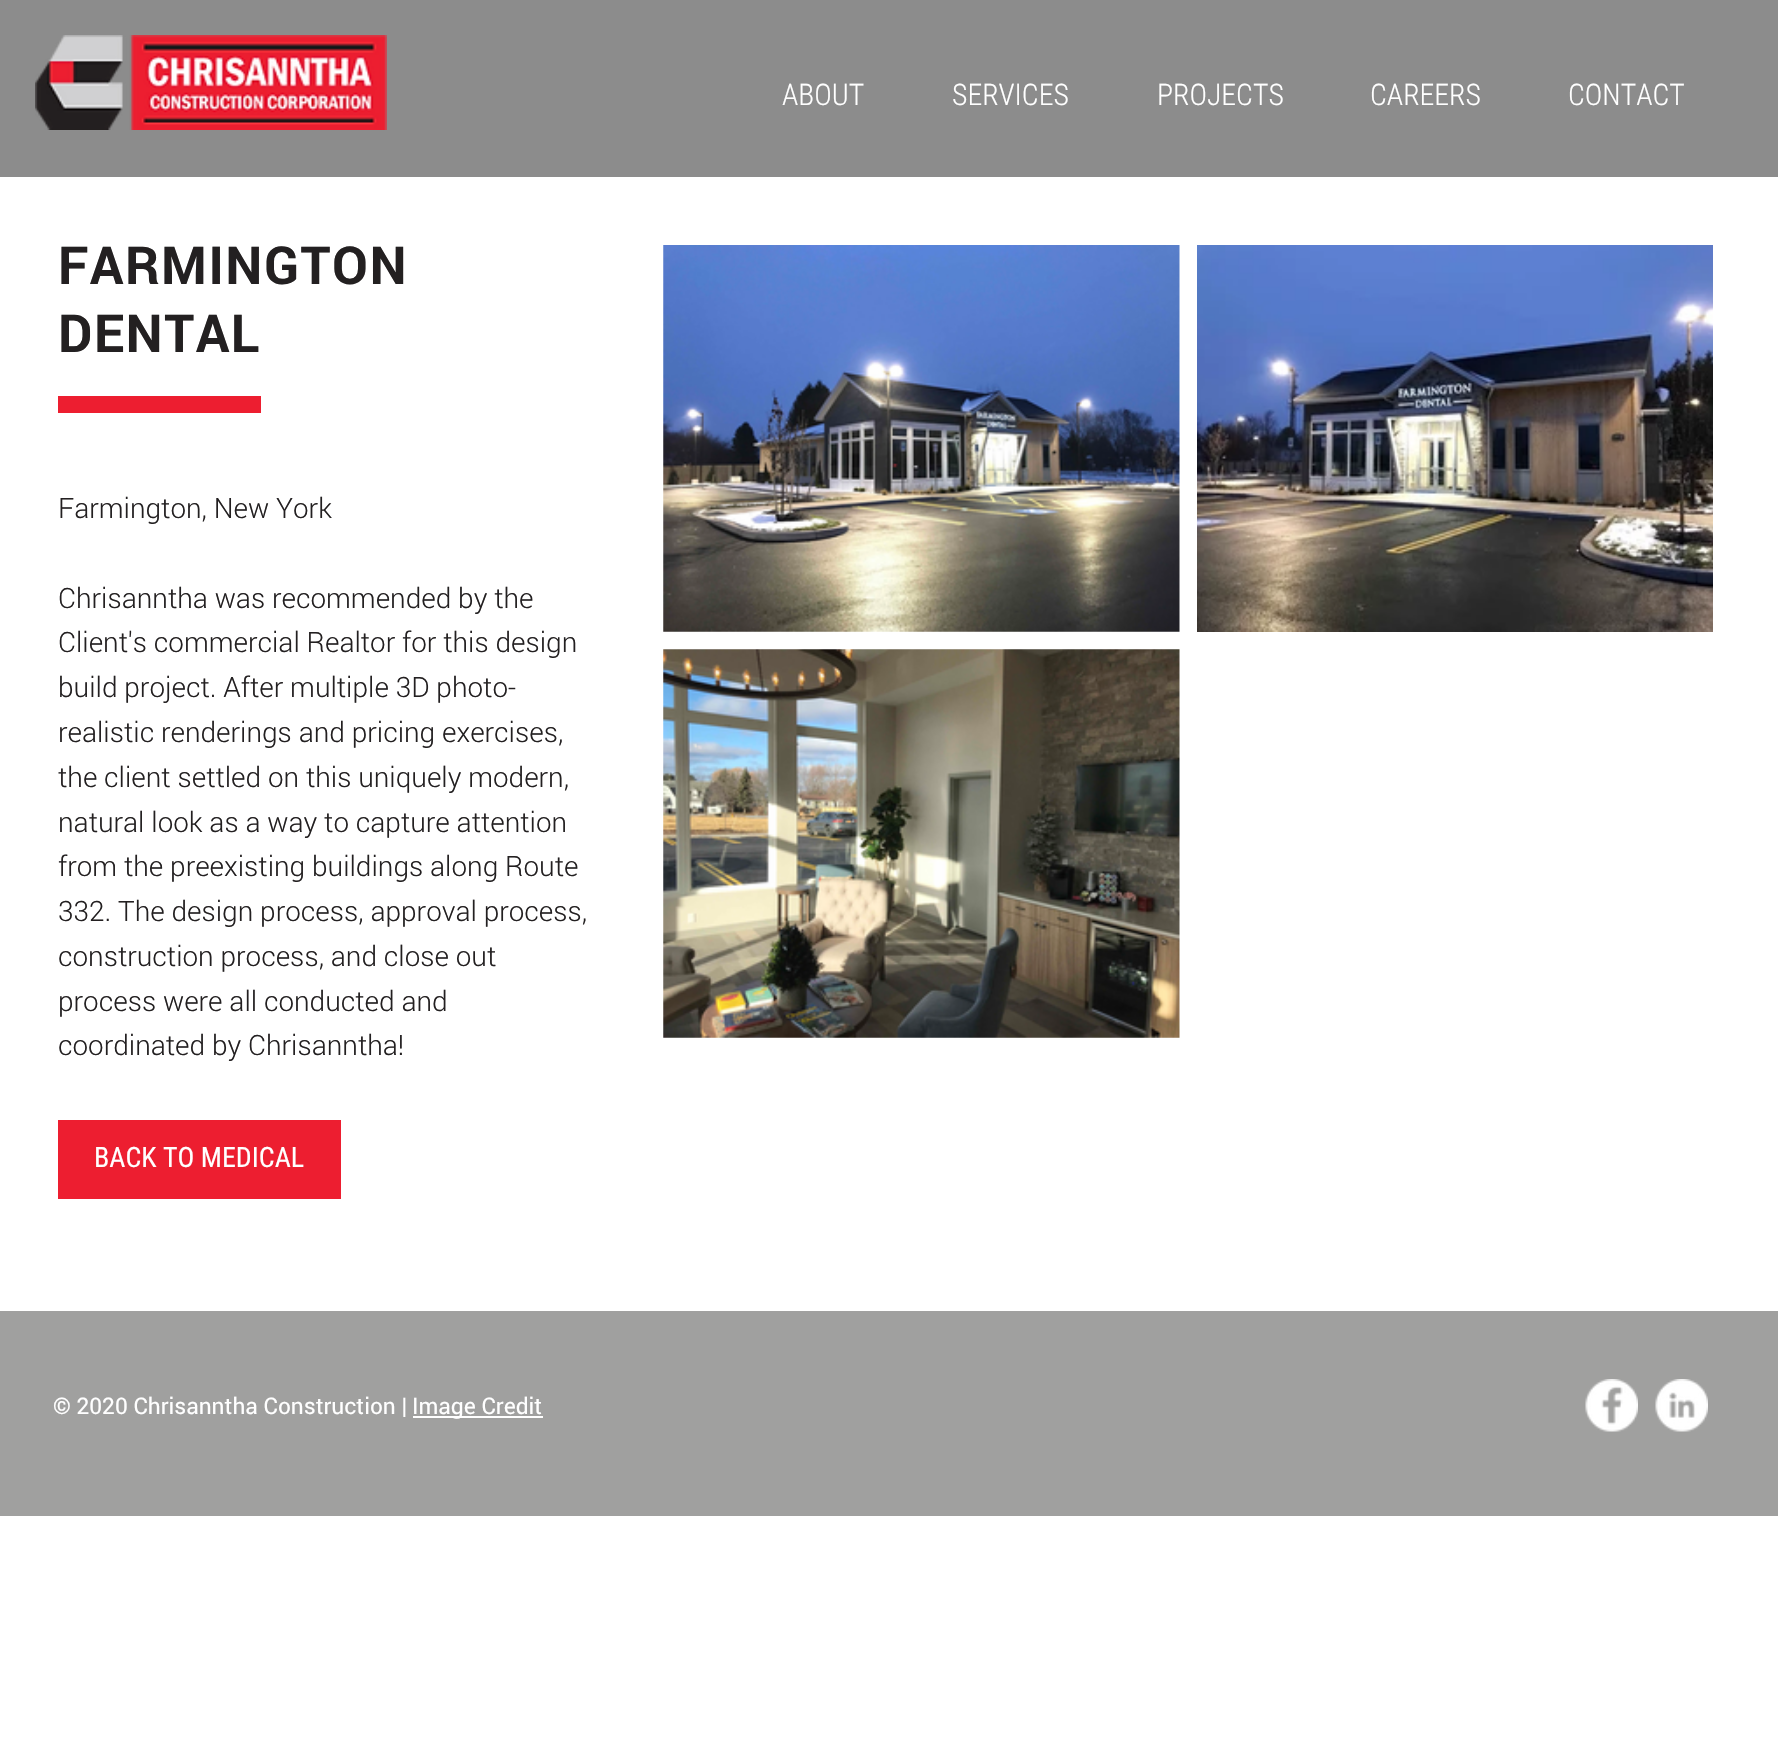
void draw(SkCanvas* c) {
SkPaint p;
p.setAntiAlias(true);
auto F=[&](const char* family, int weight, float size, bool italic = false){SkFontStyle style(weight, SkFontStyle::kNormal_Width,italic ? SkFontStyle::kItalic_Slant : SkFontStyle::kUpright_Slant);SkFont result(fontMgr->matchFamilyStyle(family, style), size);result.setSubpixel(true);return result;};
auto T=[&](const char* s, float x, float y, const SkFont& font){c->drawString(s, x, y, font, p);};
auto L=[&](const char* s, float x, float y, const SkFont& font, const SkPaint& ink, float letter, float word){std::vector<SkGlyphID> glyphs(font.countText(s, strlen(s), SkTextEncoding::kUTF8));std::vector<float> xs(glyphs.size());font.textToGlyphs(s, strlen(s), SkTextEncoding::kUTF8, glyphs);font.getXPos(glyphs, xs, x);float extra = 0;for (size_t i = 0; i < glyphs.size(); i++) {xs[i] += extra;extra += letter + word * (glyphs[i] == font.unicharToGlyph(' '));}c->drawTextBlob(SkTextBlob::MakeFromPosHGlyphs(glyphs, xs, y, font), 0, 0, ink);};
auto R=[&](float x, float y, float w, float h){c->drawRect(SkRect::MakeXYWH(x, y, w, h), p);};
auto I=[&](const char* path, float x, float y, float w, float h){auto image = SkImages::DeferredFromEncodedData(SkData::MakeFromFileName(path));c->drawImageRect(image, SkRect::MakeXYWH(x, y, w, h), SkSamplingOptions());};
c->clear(0xffffffff);
p.setColor(0xff8c8c8c);
R(0,0,1778,177);
I("1.png",35,35,352,95);
auto f1 = F("Roboto Condensed",300,29.75);
p.setColor(0xffffffff);
T("ABOUT",782,105,f1);
T("SERVICES",952,105,f1);
T("PROJECTS",1157,105,f1);
T("CAREERS",1370,105,f1);
T("CONTACT",1568,105,f1);
auto f2 = F("Roboto",700,52.5);
p.setColor(0xff232021);
L("FARMINGTON",58,284,f2,p,1.5,0);
L("DENTAL",58,352,f2,p,1.5,0);
I("2.png",663,245,517,387);
I("3.png",1197,245,516,387);
I("4.png",663,649,517,389);
p.setColor(0xffed1e30);
R(58,396,203,17);
auto f3 = F("Roboto",300,28);
p.setColor(0xff232021);
T("Farmington, New York",58,518,f3);
T("Chrisanntha was recommended by the",58,608,f3);
T("Client's commercial Realtor for this design",58,652,f3);
T("build project. After multiple 3D photo-",58,697,f3);
T("realistic renderings and pricing exercises,",58,742,f3);
T("the client settled on this uniquely modern,",58,787,f3);
T("natural look as a way to capture attention",58,832,f3);
T("from the preexisting buildings along Route",58,876,f3);
T("332. The design process, approval process,",58,921,f3);
T("construction process, and close out",58,966,f3);
T("process were all conducted and",58,1011,f3);
T("coordinated by Chrisanntha!",58,1055,f3);
p.setColor(0xffed1e30);
R(58,1120,283,79);
auto f4 = F("Roboto Condensed",400,28);
p.setColor(0xffffffff);
T("BACK TO MEDICAL",94,1167,f4);
p.setColor(0xffa0a09f);
R(0,1311,1778,205);
auto f5 = F("Roboto",400,22.75);
p.setColor(0xffffffff);
T("© 2020 Chrisanntha Construction |",53,1414,f5);
R(413,1416,130,2);
T("Image Credit",412,1414,f5);
I("5.png",1585,1379,53,53);
I("6.png",1655,1379,53,53);
}
